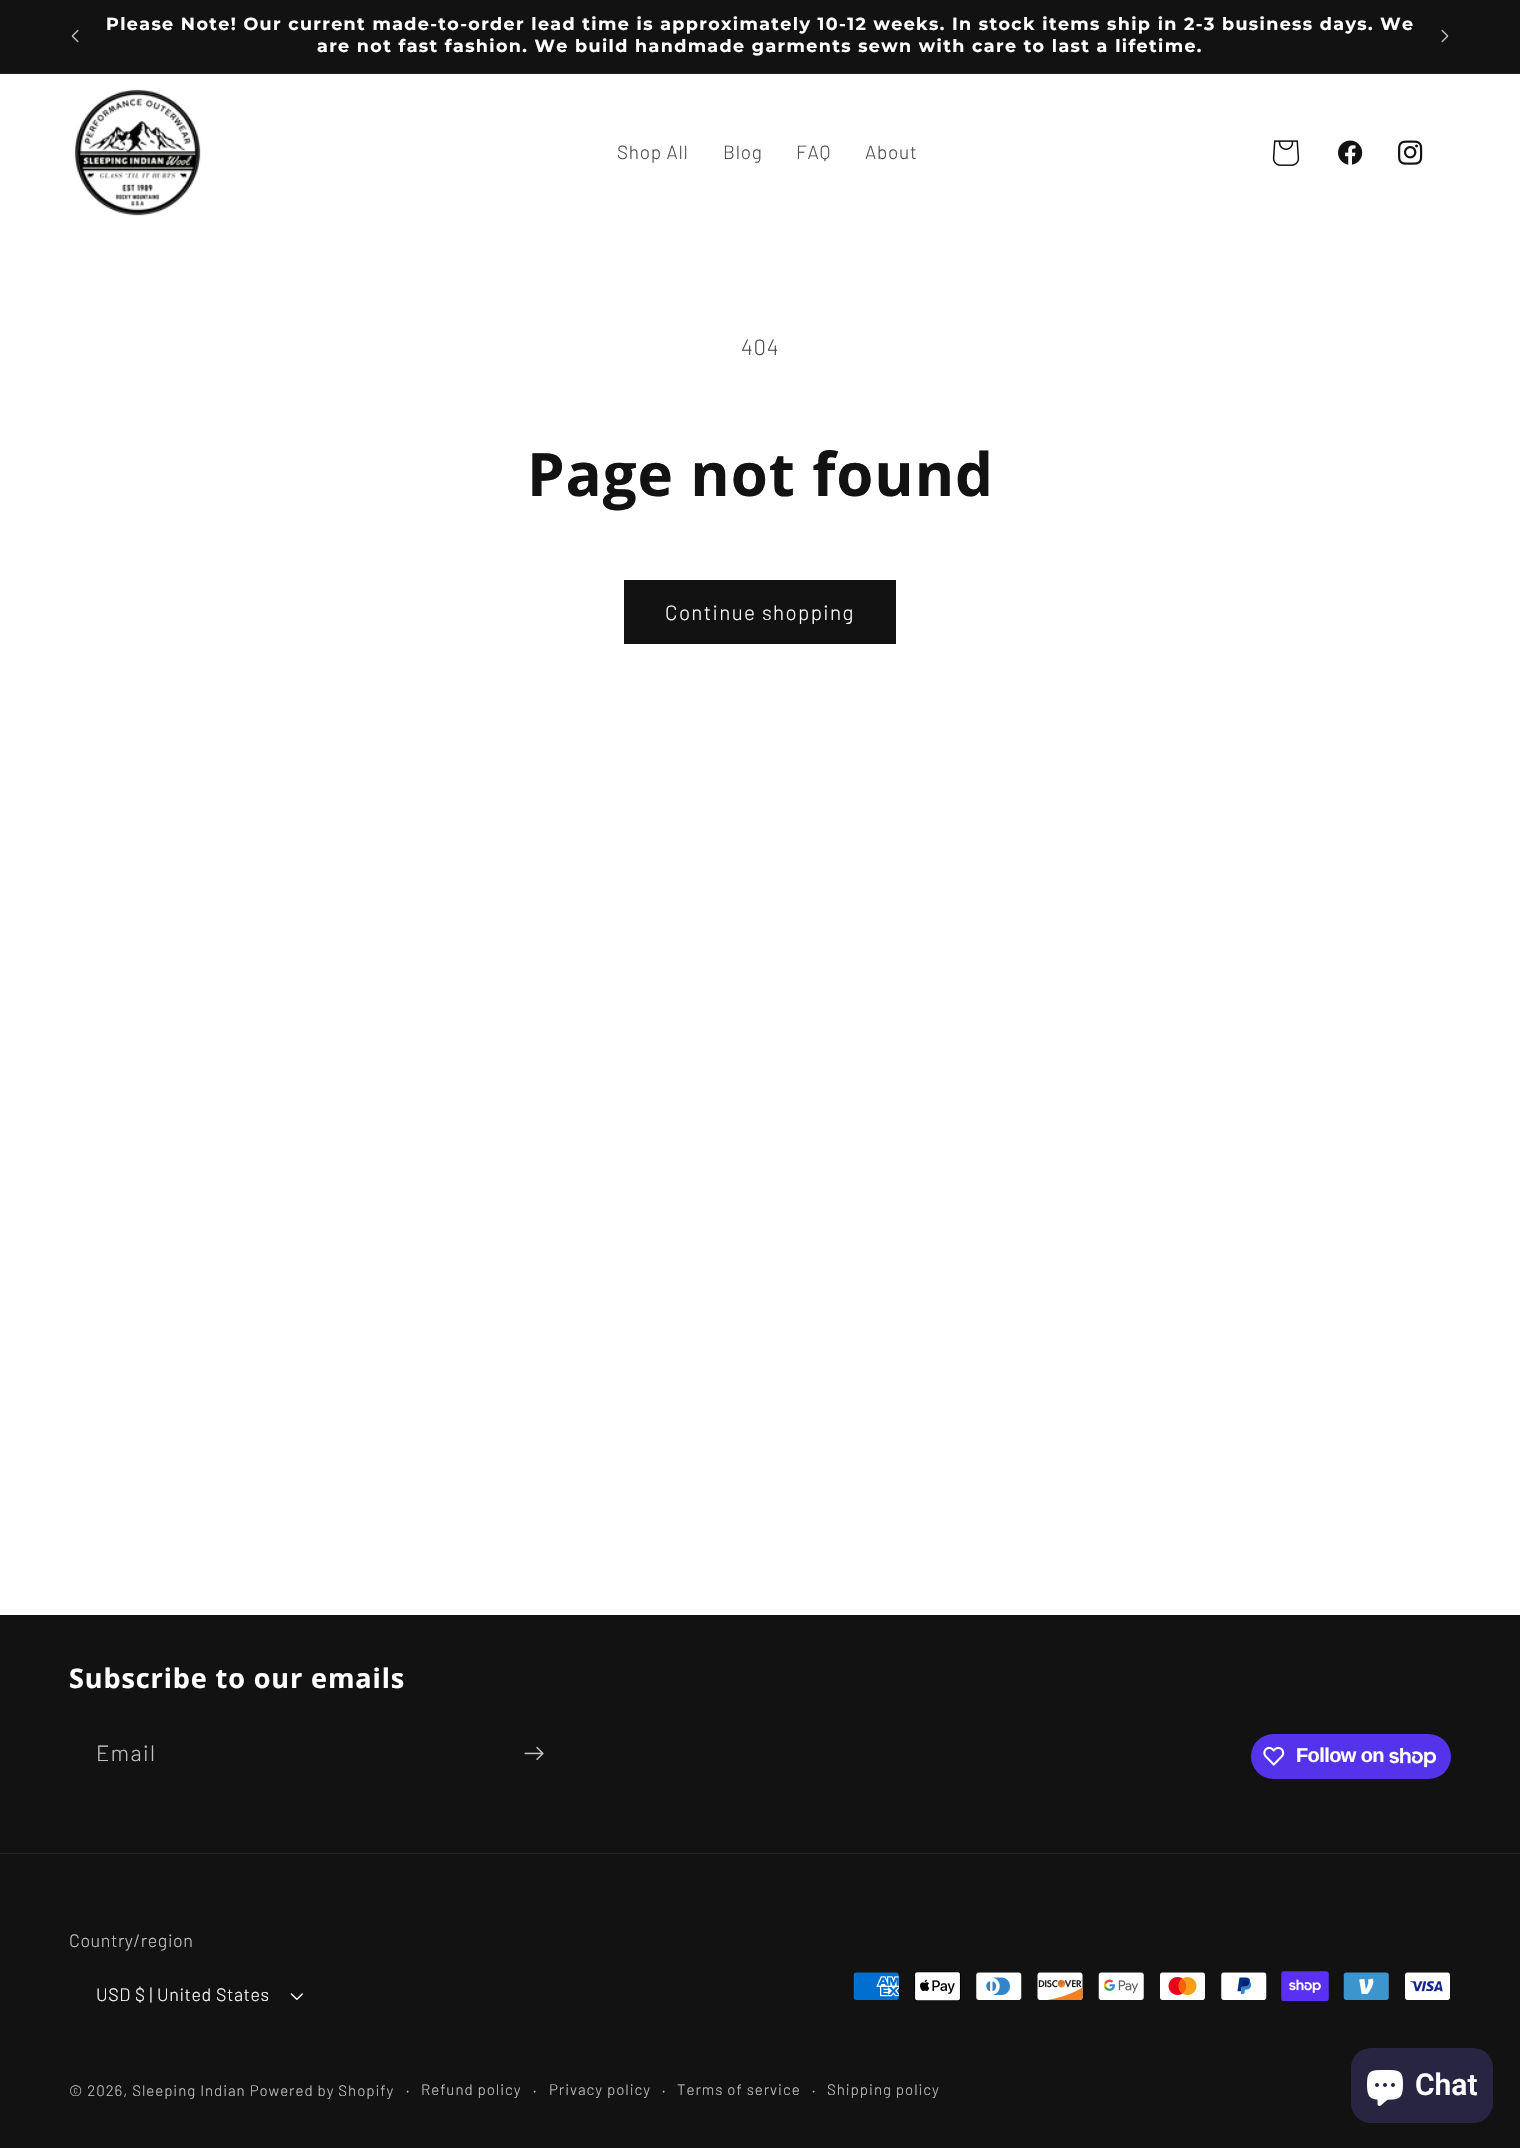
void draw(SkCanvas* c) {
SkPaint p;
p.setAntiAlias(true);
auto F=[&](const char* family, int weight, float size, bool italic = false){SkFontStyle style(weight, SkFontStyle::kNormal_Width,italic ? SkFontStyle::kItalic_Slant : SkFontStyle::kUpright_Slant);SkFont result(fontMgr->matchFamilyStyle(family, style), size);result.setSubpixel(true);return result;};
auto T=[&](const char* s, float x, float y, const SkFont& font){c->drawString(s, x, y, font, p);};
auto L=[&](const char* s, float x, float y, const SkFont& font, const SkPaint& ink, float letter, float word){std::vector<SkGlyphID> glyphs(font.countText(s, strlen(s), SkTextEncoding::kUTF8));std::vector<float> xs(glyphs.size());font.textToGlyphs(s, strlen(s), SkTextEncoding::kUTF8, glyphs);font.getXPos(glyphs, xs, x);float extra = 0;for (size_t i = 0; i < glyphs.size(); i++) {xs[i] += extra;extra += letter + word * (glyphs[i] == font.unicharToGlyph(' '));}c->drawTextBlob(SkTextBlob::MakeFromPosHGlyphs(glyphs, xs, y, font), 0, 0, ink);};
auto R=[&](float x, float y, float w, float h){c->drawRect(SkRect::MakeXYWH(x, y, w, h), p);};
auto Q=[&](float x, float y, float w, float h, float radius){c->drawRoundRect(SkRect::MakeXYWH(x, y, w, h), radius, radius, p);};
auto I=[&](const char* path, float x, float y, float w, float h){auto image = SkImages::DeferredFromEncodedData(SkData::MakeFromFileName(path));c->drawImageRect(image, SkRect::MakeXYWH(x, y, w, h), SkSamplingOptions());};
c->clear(0xffffffff);
p.setColor(0xff121212);
R(0,0,1520,73);
p.setColor(0xff252525);
R(0,73,1520,1);
I("1.png",71,29,8,14);
auto f1 = F("Montserrat",700,17.5);
p.setColor(0xffffffff);
L("Please Note! Our current made-to-order lead time is approximately 10-12 weeks. In stock items ship in 2-3 business days. We",106,30,f1,p,1.38,0);
L("are not fast fashion. We build handmade garments sewn with care to last a lifetime.",317,52,f1,p,1.38,0);
I("2.png",1441,29,8,14);
I("3.png",74,89,127,127);
auto f2 = F("Barlow",300,19);
p.setColor(0xff4d4d4d);
L("Shop All",617,159,f2,p,.75,0);
L("Blog",723,159,f2,p,.75,0);
L("FAQ",796,159,f2,p,.75,0);
L("About",865,159,f2,p,.75,0);
I("4.png",1272,140,28,26);
I("5.png",1338,140,25,25);
I("6.png",1398,140,25,25);
auto f3 = F("Barlow",300,22);
L("404",741,355,f3,p,.75,0);
auto f4 = F("Open Sans",700,60);
p.setColor(0xff121212);
L("Page not found",527,496,f4,p,.9,0);
R(624,580,272,64);
auto f5 = F("Barlow",300,20.6);
p.setColor(0xffffffff);
L("Continue shopping",665,620,f5,p,1.38,0);
p.setColor(0xff121212);
R(0,1615,1520,533);
auto f6 = F("Open Sans",700,27);
p.setColor(0xffffffff);
L("Subscribe to our emails",69,1688,f6,p,.9,0);
p.setColor(0xffc4c4c4);
L("Email",96,1761,f3,p,1.38,0);
I("7.png",524,1746,20,14);
p.setColor(0xff5433eb);
Q(1251,1734,200,45,22.5);
I("8.png",1263,1746,22,20);
auto f7 = F("Liberation Sans",700,20);
p.setColor(0xffffffff);
L("Follow on",1296,1762,f7,p,-.6,0);
I("9.png",1389,1748,47,20);
p.setColor(0xff252525);
R(0,1853,1520,1);
auto f8 = F("Barlow",300,17.9);
p.setColor(0xffc4c4c4);
L("Country/region",69,1947,f8,p,.55,0);
p.setColor(0xffffffff);
L("USD $ | United States",96,2001,f8,p,.55,0);
I("10.png",290,1993,13,7);
I("11.png",853,1972,46,28);
I("12.png",914,1971,47,30);
I("13.png",976,1972,46,28);
I("14.png",1037,1972,46,28);
I("15.png",1098,1972,46,28);
I("16.png",1160,1972,45,28);
I("17.png",1221,1972,46,28);
I("18.png",1281,1971,48,30);
I("19.png",1343,1972,46,28);
I("20.png",1405,1972,45,28);
auto f9 = F("Barlow",300,15.1);
p.setColor(0xffc4c4c4);
L("© 2026, Sleeping Indian Powered by Shopify",69,2096,f9,p,.95,0);
auto f10 = F("Barlow",300,16);
L("·",406,2096,f10,p,.95,0);
L("Refund policy",421,2095,f9,p,.95,0);
L("·",533,2096,f10,p,.95,0);
L("Privacy policy",549,2095,f9,p,.95,0);
L("·",662,2096,f10,p,.95,0);
L("Terms of service",677,2095,f9,p,.95,0);
L("·",812,2096,f10,p,.95,0);
L("Shipping policy",827,2095,f9,p,.95,0);
p.setColor(0xff272541);
Q(1351,2048,142,75,20);
I("21.png",1367,2070,36,36);
auto f11 = F("Roboto",600,30);
p.setColor(0xffffffff);
T("Chat",1415,2095,f11);
}
